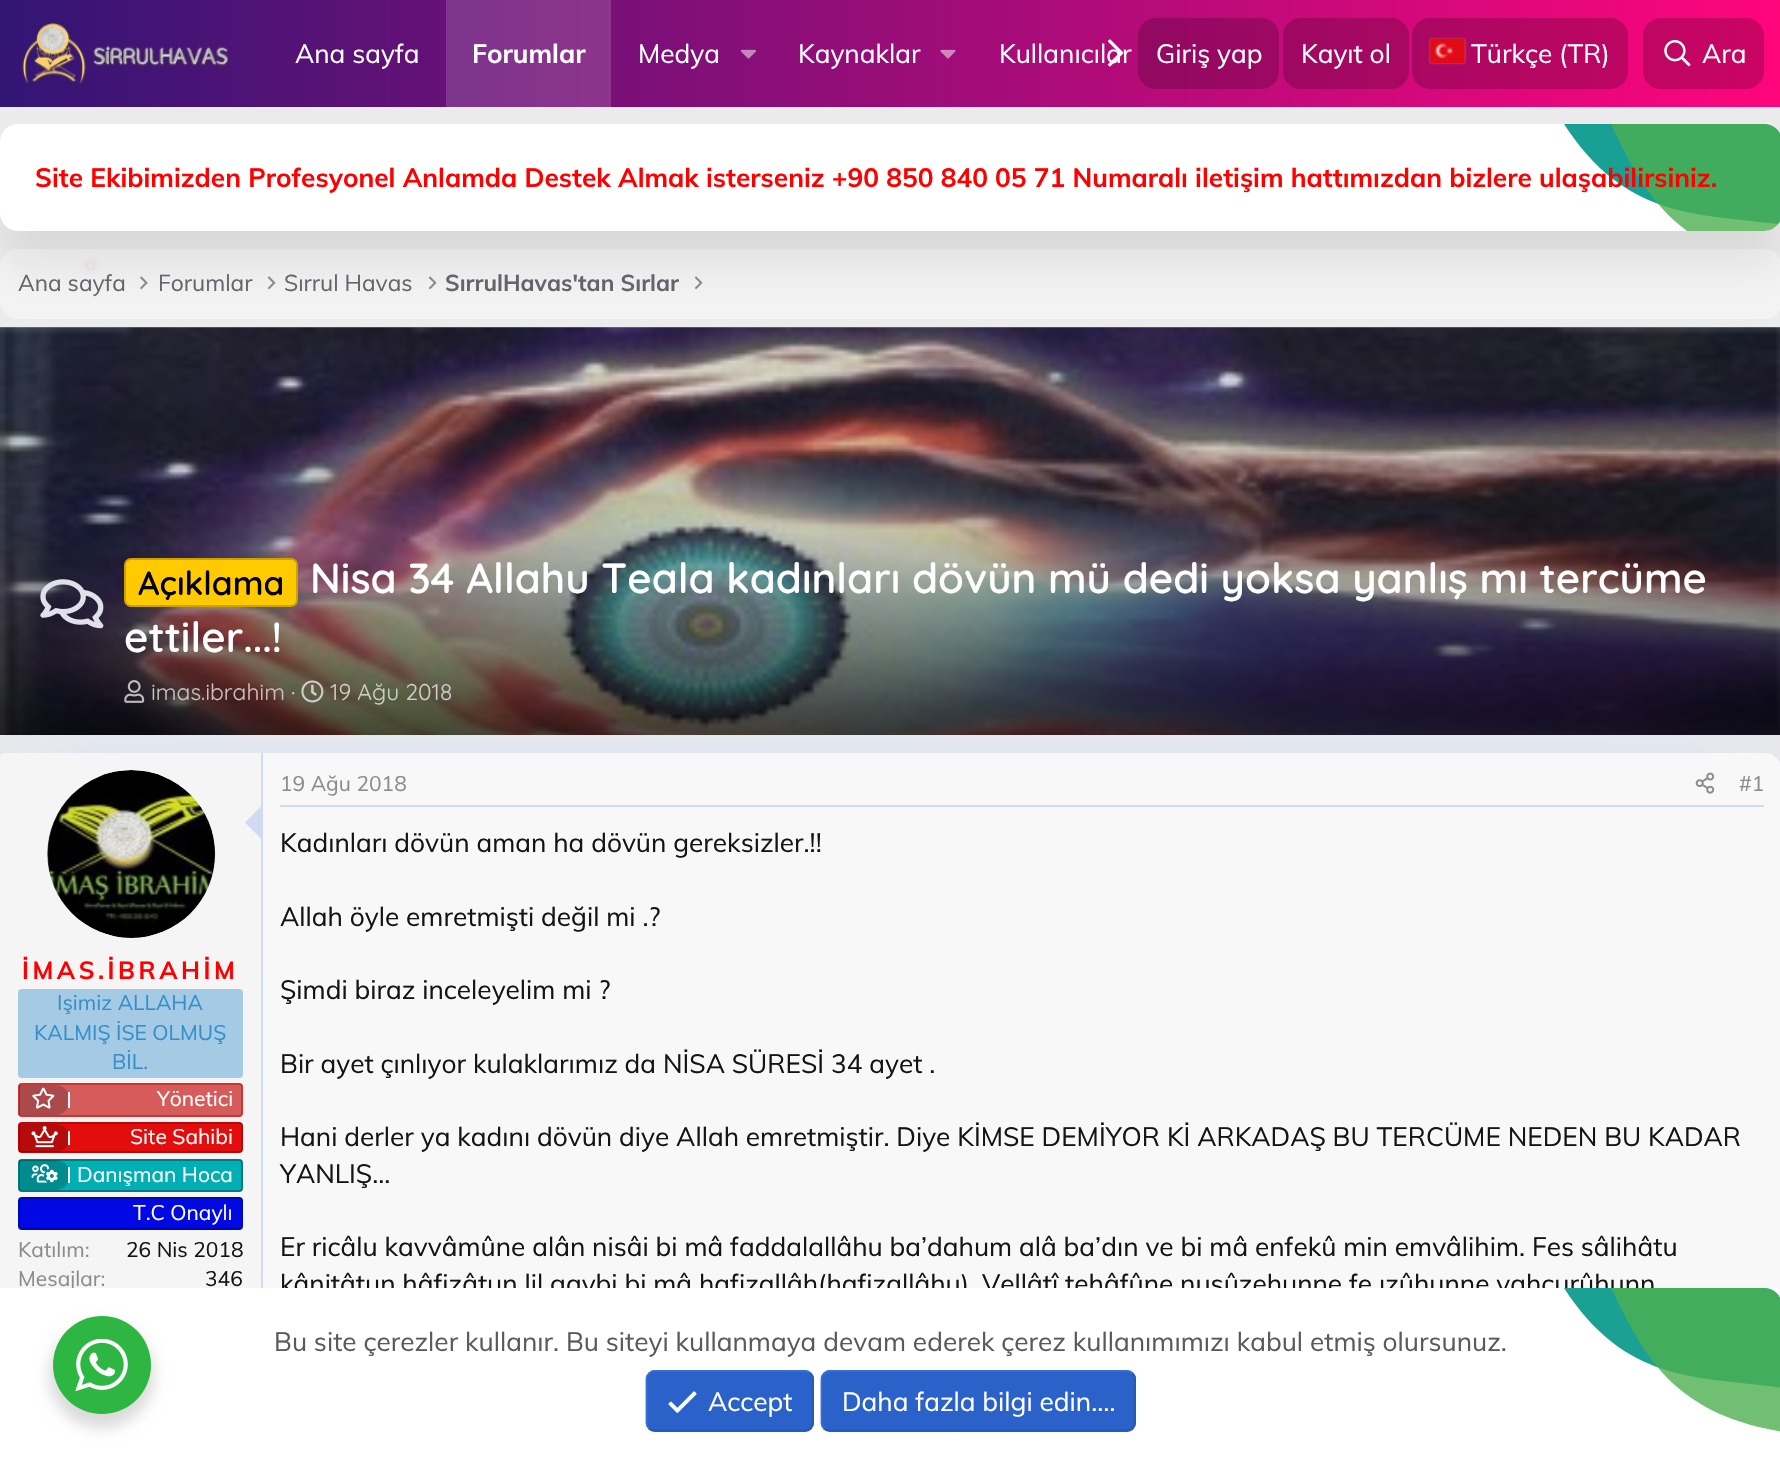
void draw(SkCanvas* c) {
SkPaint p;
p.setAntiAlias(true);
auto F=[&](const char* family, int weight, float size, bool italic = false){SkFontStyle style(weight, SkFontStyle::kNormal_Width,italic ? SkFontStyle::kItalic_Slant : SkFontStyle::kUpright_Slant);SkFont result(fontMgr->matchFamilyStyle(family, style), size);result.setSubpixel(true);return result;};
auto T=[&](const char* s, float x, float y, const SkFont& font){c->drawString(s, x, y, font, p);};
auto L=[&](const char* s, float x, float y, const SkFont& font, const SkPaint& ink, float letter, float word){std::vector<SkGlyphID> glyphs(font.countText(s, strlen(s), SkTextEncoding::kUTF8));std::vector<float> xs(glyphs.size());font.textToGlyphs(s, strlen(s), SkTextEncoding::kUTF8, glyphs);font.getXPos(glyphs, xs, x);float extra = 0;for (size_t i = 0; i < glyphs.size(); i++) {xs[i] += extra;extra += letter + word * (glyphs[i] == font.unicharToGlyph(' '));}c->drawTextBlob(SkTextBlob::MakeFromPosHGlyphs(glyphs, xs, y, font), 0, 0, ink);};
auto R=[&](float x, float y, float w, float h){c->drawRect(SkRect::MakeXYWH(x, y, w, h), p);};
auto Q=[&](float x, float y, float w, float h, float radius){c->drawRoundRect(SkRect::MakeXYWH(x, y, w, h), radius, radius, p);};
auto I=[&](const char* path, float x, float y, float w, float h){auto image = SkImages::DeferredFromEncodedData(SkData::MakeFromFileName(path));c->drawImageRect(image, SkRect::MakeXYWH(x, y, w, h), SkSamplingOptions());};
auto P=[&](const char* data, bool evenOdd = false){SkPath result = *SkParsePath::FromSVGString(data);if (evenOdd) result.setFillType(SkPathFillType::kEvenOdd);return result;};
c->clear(0xffececec);
c->save();
c->clipPath(P("M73 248h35v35h-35zm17.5 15c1.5 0 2.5 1 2.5 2.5c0 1.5-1 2.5-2.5 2.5c-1.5 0-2.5-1-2.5-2.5c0-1.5 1-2.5 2.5-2.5z",true),true);
p.setColor(0xe6a9268d);
p.setMaskFilter(SkMaskFilter::MakeBlur(kNormal_SkBlurStyle, 4.5));
c->drawRoundRect(SkRect::MakeXYWH(88,263,5,5),2.5,2.5,p);
p.setMaskFilter(nullptr);
c->restore();
p.setStroke(true);
p.setStrokeWidth(2);
p.setColor(0x08a9268d);
c->drawRect(SkRect::MakeXYWH(89,264,3,3),p);
p.setStroke(false);
p.setColor(0x66ffffff);
Q(0,249,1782,70,18);
I("7.png",140,276,8,14);
I("8.png",267,276,9,14);
I("8.png",428,276,9,14);
I("8.png",694,276,9,14);
p.setColor(0x14000000);
p.setMaskFilter(SkMaskFilter::MakeBlur(kNormal_SkBlurStyle, 22));
c->drawRoundRect(SkRect::MakeXYWH(0,159,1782,107),18,18,p);
p.setMaskFilter(nullptr);
{
const SkColor colors[] = {0xff321575,0xffff057c};
const float stops[] = {0,1};
const SkPoint ends[] = {{0,53}, {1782,53}};
p.setShader(SkGradientShader::MakeLinear(ends, colors, stops, 2, SkTileMode::kClamp));
p.setAlpha(255);
}
R(0,0,1780,107);
{
const SkColor colors[] = {0xff51388a,0xffff2b90};
const float stops[] = {0,1};
const SkPoint ends[] = {{0,53}, {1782,53}};
p.setShader(SkGradientShader::MakeLinear(ends, colors, stops, 2, SkTileMode::kClamp));
p.setAlpha(255);
}
R(446,0,165,107);
I("1.png",21,21,209,66);
auto f1 = F("Muli",400,26.25);
p.setShader(nullptr);
p.setColor(0xffffffff);
T("Kullanıcılar",999,63,f1);
I("2.png",1107,39,17,28);
T("Ana sayfa",295,63,f1);
auto f2 = F("Muli",700,26.25);
T("Forumlar",472,63,f2);
T("Medya",638,63,f1);
I("3.png",740,49,16,10);
T("Kaynaklar",798,63,f1);
I("4.png",940,49,16,10);
p.setColor(0x33000000);
Q(1138,18,141,71,18);
p.setColor(0xffffffff);
T("Giriş yap",1156,63,f1);
p.setColor(0x33000000);
Q(1283,18,126,71,18);
p.setColor(0xffffffff);
T("Kayıt ol",1301,63,f1);
p.setColor(0x33000000);
Q(1412,18,216,71,18);
p.setColor(0xff888888);
p.setMaskFilter(SkMaskFilter::MakeBlur(kNormal_SkBlurStyle, 1));
c->drawRect(SkRect::MakeXYWH(1430,39,35,24),p);
p.setMaskFilter(nullptr);
I("5.png",1429,38,36,25);
p.setColor(0xffffffff);
T("Türkçe (TR)",1471,63,f1);
p.setColor(0x33000000);
Q(1643,18,121,71,18);
I("6.png",1664,40,27,27);
p.setColor(0xffffffff);
T("Ara",1702,63,f1);
Q(0,124,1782,107,18);
p.setColor(0xe6009688);
c->drawPath(P("M1778 224l-9-1c-74-9-145-6-205-99h200c10 0 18 8 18 18v71c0 4-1 8-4 11z"),p);
p.setColor(0xcc4caf50);
c->drawPath(P("M1687 231h77c10 0 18-8 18-18v-71c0-10-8-18-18-18h-153c19 40 38 79 76 107z"),p);
p.setColor(0xffff0000);
T("Site Ekibimizden Profesyonel Anlamda Destek Almak isterseniz +90 850 840 05 71 Numaralı iletişim hattımızdan bizlere ulaşabilirsiniz.",35,187,f2);
auto f3 = F("Muli",400,22.75);
p.setColor(0xff62666c);
T("Ana sayfa",18,291,f3);
T("Forumlar",158,291,f3);
T("Sırrul Havas",284,291,f3);
c->save();
c->clipRect(SkRect::MakeXYWH(446,266,233,35));
auto f4 = F("Muli",700,22.75);
T("SırrulHavas'tan Sırlar",445,291,f4);
c->restore();
p.setColor(0x1c6797ff);
p.setMaskFilter(SkMaskFilter::MakeBlur(kNormal_SkBlurStyle, 79));
c->drawRoundRect(SkRect::MakeXYWH(0,774,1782,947),18,18,p);
p.setMaskFilter(nullptr);
p.setMaskFilter(SkMaskFilter::MakeBlur(kNormal_SkBlurStyle, 52.5));
c->drawRoundRect(SkRect::MakeXYWH(0,767,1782,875),18,18,p);
p.setMaskFilter(nullptr);
I("9.png",0,327,1780,408);
{
const SkColor colors[] = {0x1a000000,0x33000000,0xb3000000};
const float stops[] = {0,.5,1};
const SkPoint ends[] = {{891,327}, {891,735}};
p.setShader(SkGradientShader::MakeLinear(ends, colors, stops, 3, SkTileMode::kClamp));
p.setAlpha(255);
}
R(0,327,1780,408);
I("10.png",40,579,64,50);
p.setShader(nullptr);
p.setColor(0xffffcb00);
c->drawRoundRect(SkRect::MakeXYWH(125,559,172,47),6,6,p);
p.setStroke(true);
p.setColor(0xffcca200);
c->drawRoundRect(SkRect::MakeXYWH(125,559,172,47),6,6,p);
auto f5 = F("Quicksand",600,33.5);
p.setStroke(false);
p.setColor(0xff000000);
T("Açıklama",138,595,f5);
auto f6 = F("Quicksand",600,42);
p.setColor(0xffffffff);
T("Nisa 34 Allahu Teala kadınları dövün mü dedi yoksa yanlış mı tercüme",310,593,f6);
T("ettiler...!",124,652,f6);
I("11.png",124,680,21,23);
auto f7 = F("Quicksand",400,22.75);
p.setColor(0xffc9c0bf);
T("imas.ibrahim",151,700,f7);
p.setColor(0xffcecec7);
T("·",291,700,f7);
I("12.png",301,680,23,23);
T("19 Ağu 2018",330,700,f7);
p.setColor(0xfff8f8f8);
Q(0,753,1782,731,18);
p.setColor(0xfff5f5f5);
c->drawPath(P("M5 753h258v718h-258c-3 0-5-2-5-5v-708c0-3 2-5 5-5z"),p);
p.setColor(0xffcfdbf2);
R(261,753,2,535);
p.setColor(0xfffefefe);
c->drawCircle(131,854,84,p);
I("13.png",47,770,169,168);
p.setColor(0xffcfdbf2);
c->drawPath(P("M262.5 805v35l-17.5-17.5z"),p);
auto f8 = F("Muli",700,24.5);
p.setColor(0xffff0000);
L("İMAS.İBRAHİM",22,979,f8,p,3.5,0);
p.setColor(0xffa5cae4);
Q(18,989,225,89,4);
auto f9 = F("Muli",400,21);
p.setColor(0xff338fcc);
T("Işimiz ALLAHA",57,1010,f9);
T("KALMIŞ İSE OLMUŞ",34,1040,f9);
T("BİL.",112,1069,f9);
p.setColor(0xffd65c5c);
c->drawRoundRect(SkRect::MakeXYWH(19,1084,223,32),3,3,p);
p.setStroke(true);
p.setColor(0xffcc3333);
c->drawRoundRect(SkRect::MakeXYWH(19,1084,223,32),3,3,p);
p.setStroke(false);
p.setColor(0x33000000);
c->drawPath(P("M19 1085h36c8.5 0 15 6.5 15 15c0 8.5-6.5 15-15 15h-36z"),p);
p.setColor(0xffffffff);
R(68,1092,2,16);
I("14.png",32,1087,23,22);
T("Yönetici",157,1106,f9);
p.setColor(0xffe40d0d);
c->drawRoundRect(SkRect::MakeXYWH(19,1123,223,29),3,3,p);
p.setStroke(true);
p.setColor(0xffb40a0a);
c->drawRoundRect(SkRect::MakeXYWH(19,1123,223,29),3,3,p);
p.setStroke(false);
p.setColor(0x33000000);
c->drawPath(P("M19 1124h37c7.5 0 14 6.5 14 14c0 7.5-6.5 14-14 14h-37z"),p);
p.setColor(0xffffffff);
R(68,1131,2,14);
I("15.png",31,1126,27,22);
T("Site Sahibi",130,1144,f9);
p.setColor(0xff00aeb3);
c->drawRoundRect(SkRect::MakeXYWH(19,1160,223,31),3,3,p);
p.setStroke(true);
p.setColor(0xff007c80);
c->drawRoundRect(SkRect::MakeXYWH(19,1160,223,31),3,3,p);
p.setStroke(false);
p.setColor(0x33000000);
c->drawPath(P("M19 1160h36c8.5 0 15 6.5 15 15c0 8.5-6.5 15-15 15h-36z"),p);
p.setColor(0xffffffff);
R(68,1167,2,16);
I("16.png",31,1164,27,19);
T("Danışman Hoca",77,1182,f9);
p.setColor(0xff0008e3);
c->drawRoundRect(SkRect::MakeXYWH(19,1198,223,31),3,3,p);
p.setStroke(true);
p.setColor(0xff0006b0);
c->drawRoundRect(SkRect::MakeXYWH(19,1198,223,31),3,3,p);
p.setStroke(false);
p.setColor(0xffffffff);
T("T.C Onaylı",133,1220,f9);
p.setColor(0xff8c8c8c);
T("Katılım:",18,1257,f9);
p.setColor(0xff141414);
T("26 Nis 2018",126,1257,f9);
p.setColor(0xff8c8c8c);
T("Mesajlar:",18,1286,f9);
p.setColor(0xff141414);
T("346",205,1286,f9);
p.setColor(0xffcfdbf2);
R(280,805,1484,2);
p.setColor(0xff8c8c8c);
T("19 Ağu 2018",280,791,f9);
I("17.png",1695,772,20,22);
T("#1",1739,791,f9);
p.setColor(0xff141414);
T("Kadınları dövün aman ha dövün gereksizler.!!",280,852,f1);
T("Allah öyle emretmişti değil mi .?",280,926,f1);
T("Şimdi biraz inceleyelim mi ?",280,999,f1);
T("Bir ayet çınlıyor kulaklarımız da NİSA SÜRESİ 34 ayet .",280,1073,f1);
T("Hani derler ya kadını dövün diye Allah emretmiştir. Diye KİMSE DEMİYOR Kİ ARKADAŞ BU TERCÜME NEDEN BU KADAR",280,1146,f1);
T("YANLIŞ...",280,1183,f1);
T("Er ricâlu kavvâmûne alân nisâi bi mâ faddalallâhu ba’dahum alâ ba’dın ve bi mâ enfekû min emvâlihim. Fes sâlihâtu",280,1256,f1);
T("kânitâtun hâfizâtun lil gaybi bi mâ hafizallâh(hafizallâhu). Vellâtî tehâfûne nuşûzehunne fe ızûhunne vahcurûhunn",280,1293,f1);
p.setColor(0xffffffff);
R(0,1288,1780,178);
p.setColor(0x24000000);
p.setMaskFilter(SkMaskFilter::MakeBlur(kNormal_SkBlurStyle, 7));
c->drawRoundRect(SkRect::MakeXYWH(49,1323,105,105),52.5,52.5,p);
p.setMaskFilter(nullptr);
p.setColor(0xff2db742);
c->drawCircle(102,1365,49,p);
I("18.png",75,1339,53,52);
p.setColor(0xff5a5a5a);
T("Bu site çerezler kullanır. Bu siteyi kullanmaya devam ederek çerez kullanımımızı kabul etmiş olursunuz.",274,1351,f1);
p.setColor(0xff1aa194);
c->drawPath(P("M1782 1388l-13-2c-74-9-145-5-205-98h200c10 0 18 8 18 18z"),p);
p.setColor(0xcc4caf50);
c->drawPath(P("M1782 1432v-126c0-10-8-18-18-18h-153c30 61 57 120 157 141z"),p);
p.setColor(0xff2b62c9);
Q(646,1370,168,62,9);
p.setStroke(true);
p.setStrokeWidth(1.8);
p.setColor(0xff2758b4);
c->drawPath(P("M810.5 1373.5c1.5 1.5 2.5 3.5 2.5 5.5v44c0 2-1 4-2.5 5.5c-1.5 1.5-3.5 2-5.5 2h-150.5c-2 0-4-.5-5.5-2"),p);
p.setColor(0xff396fd5);
c->drawPath(P("M649 1428.5c-1.5-1.5-2.5-3.5-2.5-5.5v-44c0-2 1-4 2.5-5.5c1.5-1.5 3.5-2.5 5.5-2.5h150.5c2 0 4 1 5.5 2.5"),p);
I("19.png",668,1391,29,22);
p.setStroke(false);
p.setColor(0xffffffff);
T("Accept",708,1411,f1);
p.setColor(0xff2b62c9);
Q(821,1370,315,62,9);
p.setStroke(true);
p.setColor(0xff2758b4);
c->drawPath(P("M1132.5 1373.5c1.5 1.5 2.5 3.5 2.5 5.5v44c0 2-1 4-2.5 5.5c-1.5 1.5-3.5 2-5.5 2h-297.5c-2 0-4-.5-5.5-2"),p);
p.setColor(0xff396fd5);
c->drawPath(P("M824 1428.5c-1.5-1.5-2.5-3.5-2.5-5.5v-44c0-2 1-4 2.5-5.5c1.5-1.5 3.5-2.5 5.5-2.5h297.5c2 0 4 1 5.5 2.5"),p);
p.setStroke(false);
p.setColor(0xffffffff);
T("Daha fazla bilgi edin.…",842,1411,f1);
}
